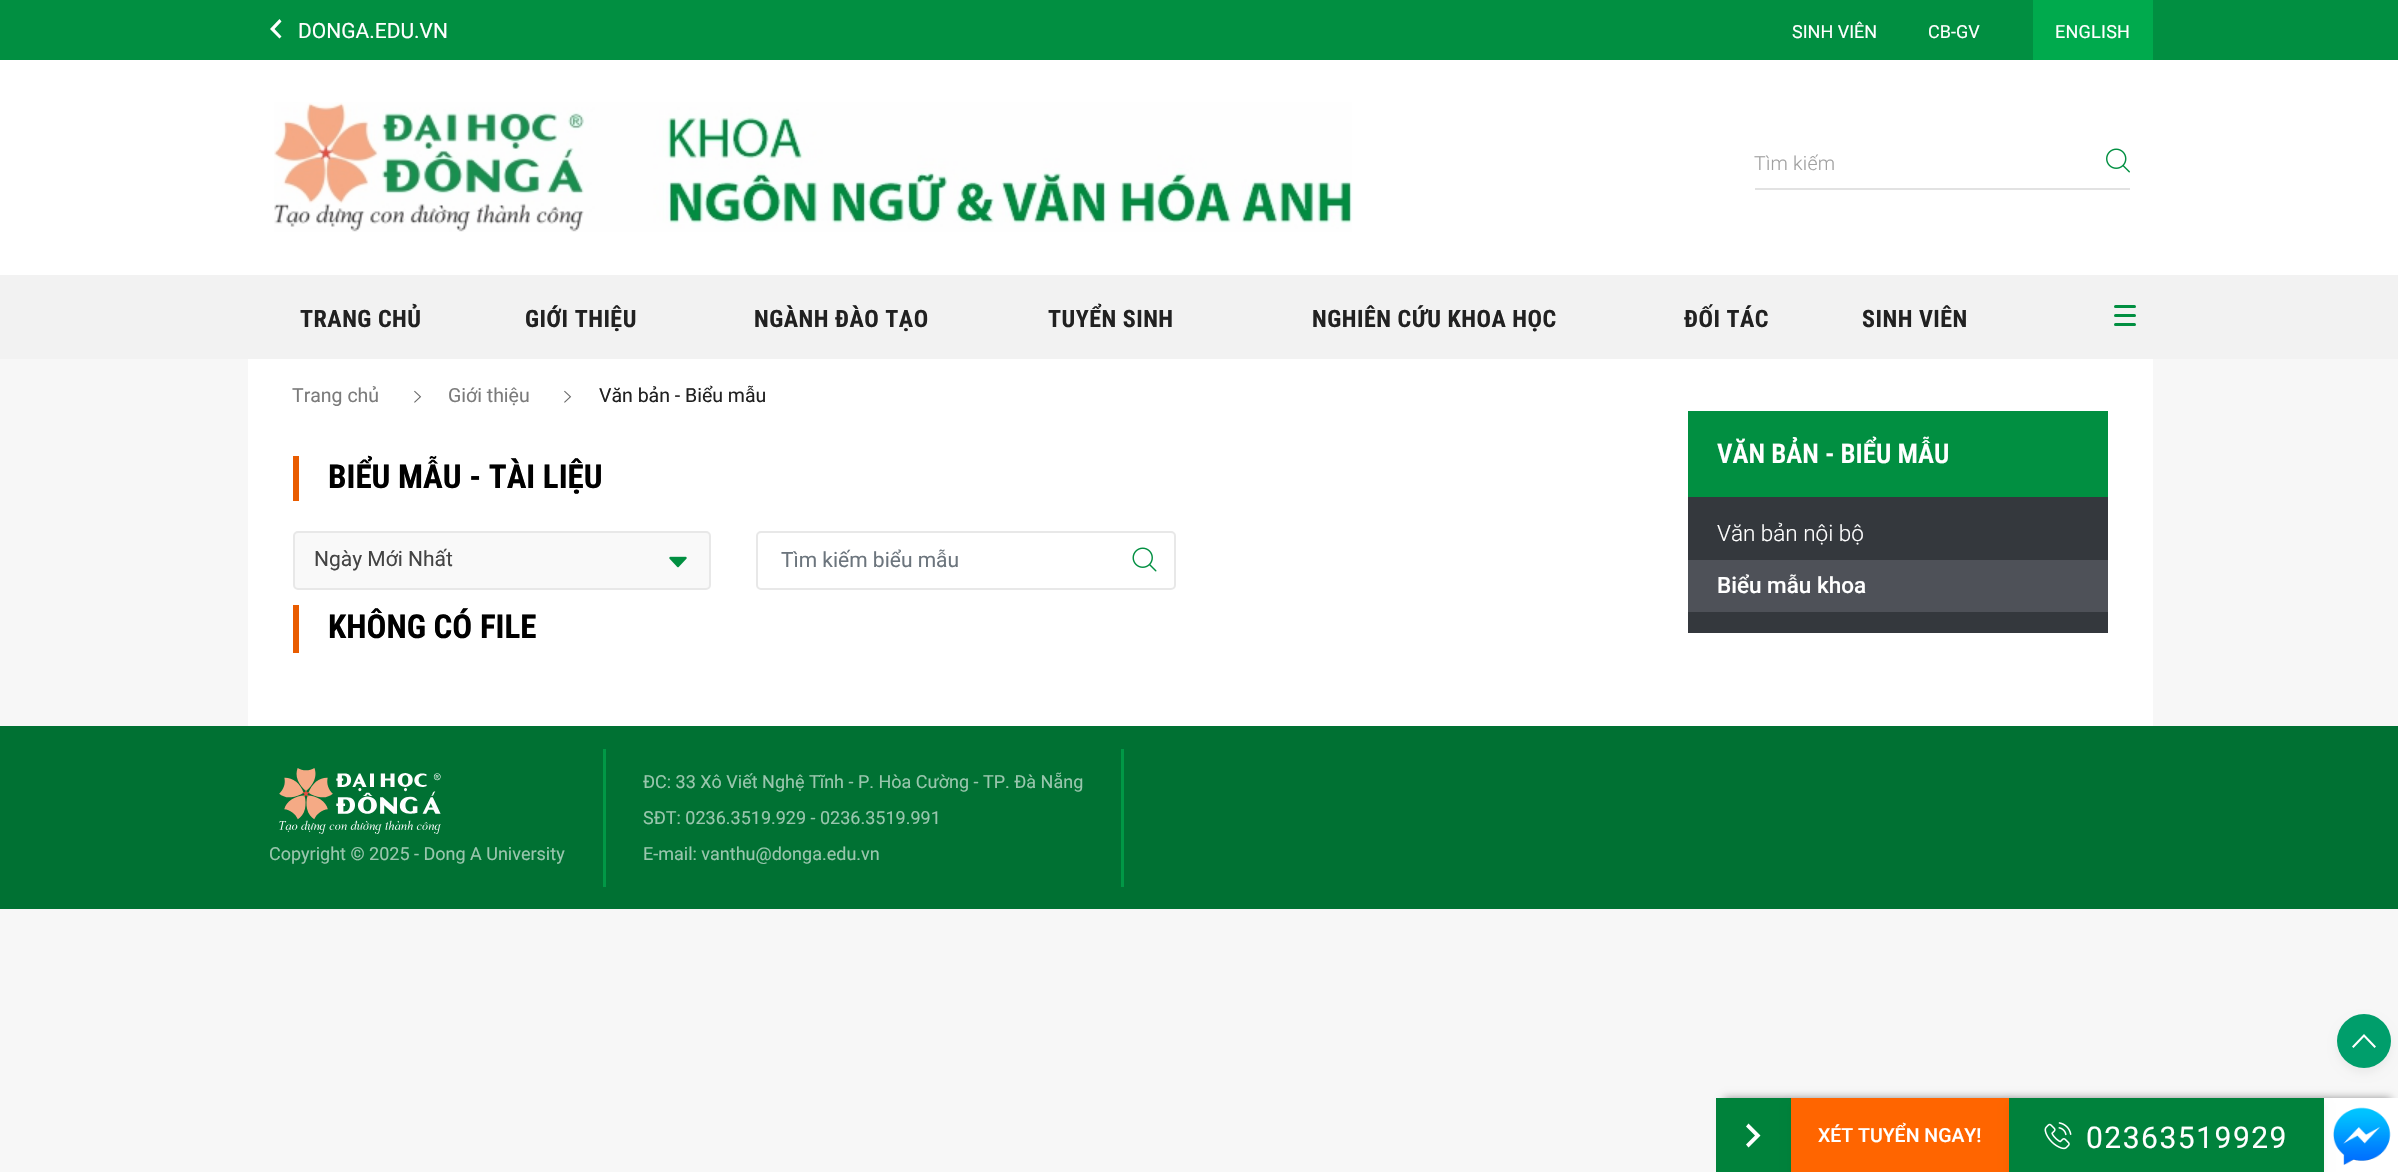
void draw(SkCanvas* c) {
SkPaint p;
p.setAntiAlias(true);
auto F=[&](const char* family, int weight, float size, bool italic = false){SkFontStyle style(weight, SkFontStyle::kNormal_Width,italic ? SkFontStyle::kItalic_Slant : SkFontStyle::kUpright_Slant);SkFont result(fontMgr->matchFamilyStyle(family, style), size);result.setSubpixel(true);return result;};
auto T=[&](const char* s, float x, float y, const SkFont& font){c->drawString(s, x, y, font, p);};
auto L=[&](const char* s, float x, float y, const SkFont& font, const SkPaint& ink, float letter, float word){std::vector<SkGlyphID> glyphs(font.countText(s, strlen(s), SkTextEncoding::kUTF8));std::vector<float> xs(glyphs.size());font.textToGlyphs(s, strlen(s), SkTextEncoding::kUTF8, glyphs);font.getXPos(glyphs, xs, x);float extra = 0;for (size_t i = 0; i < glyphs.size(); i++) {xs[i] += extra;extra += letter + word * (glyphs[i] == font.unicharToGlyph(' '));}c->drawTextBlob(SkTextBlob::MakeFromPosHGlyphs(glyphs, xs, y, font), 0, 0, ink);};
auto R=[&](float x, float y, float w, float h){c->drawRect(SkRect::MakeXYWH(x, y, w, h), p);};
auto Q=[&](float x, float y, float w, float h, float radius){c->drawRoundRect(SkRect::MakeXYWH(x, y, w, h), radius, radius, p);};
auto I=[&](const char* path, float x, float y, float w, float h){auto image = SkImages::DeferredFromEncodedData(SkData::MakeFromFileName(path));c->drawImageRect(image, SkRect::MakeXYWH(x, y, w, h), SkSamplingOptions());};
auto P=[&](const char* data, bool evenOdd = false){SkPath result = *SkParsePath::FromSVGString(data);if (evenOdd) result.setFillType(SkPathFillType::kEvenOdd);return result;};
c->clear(0xfff7f7f7);
p.setColor(0xff018f41);
R(0,0,2398,60);
auto f1 = F("Roboto",400,21);
p.setColor(0xffffffff);
T("DONGA.EDU.VN",298,38,f1);
c->drawPath(P("M281.5 21.5l-7 7.5l7 7.5l-2 2l-9.5-9.5l9.5-10z"),p);
auto f2 = F("Roboto",400,18);
T("SINH VIÊN",1792,38,f2);
T("CB-GV",1928,38,f2);
p.setColor(0xff00aa4d);
R(2033,0,120,60);
p.setColor(0xffffffff);
L("ENGLISH",2055,38,f2,p,.25,0);
R(0,60,2398,215);
I("1.png",274,102,1078,130);
p.setColor(0xffe2e2e2);
R(1755,188,375,2);
auto f3 = F("Roboto",300,19.5);
p.setColor(0xffa0a0a0);
L("Tìm kiếm",1754,170,f3,p,.25,0);
I("2.png",2106,148,24,25);
p.setColor(0xfff2f2f2);
R(0,275,2398,84);
auto f4 = F("Roboto Condensed",700,24);
p.setColor(0xff212121);
L("TRANG CHỦ",300,327,f4,p,.5,0);
L("GIỚI THIỆU",525,327,f4,p,.5,0);
L("NGÀNH ĐÀO TẠO",754,327,f4,p,.5,0);
L("TUYỂN SINH",1048,327,f4,p,.5,0);
L("NGHIÊN CỨU KHOA HỌC",1312,327,f4,p,.5,0);
L("ĐỐI TÁC",1684,327,f4,p,.5,0);
L("SINH VIÊN",1862,327,f4,p,.5,0);
p.setColor(0xff018f41);
Q(2114,305,22,3,1.5);
Q(2114,314,22,3,1.5);
Q(2114,323,22,3,1.5);
p.setColor(0xffffffff);
R(248,359,1905,367);
auto f5 = F("Roboto",400,19.5);
p.setColor(0xff7b7b7b);
T("Trang chủ",292,402,f5);
I("3.png",414,390,8,13);
T("Giới thiệu",448,402,f5);
I("3.png",564,390,8,13);
p.setColor(0xff212121);
T("Văn bản - Biểu mẫu",599,402,f5);
p.setColor(0xffe95c00);
R(293,456,6,45);
auto f6 = F("Roboto Condensed",700,33);
p.setColor(0xff000000);
T("BIỂU MẪU - TÀI LIỆU",328,488,f6);
p.setColor(0xfff9f9f9);
c->drawRoundRect(SkRect::MakeXYWH(294,532,416,57),4,4,p);
p.setStroke(true);
p.setStrokeWidth(2);
p.setColor(0xffe8e8e8);
c->drawRoundRect(SkRect::MakeXYWH(294,532,416,57),4,4,p);
p.setStroke(false);
p.setColor(0xff444444);
T("Ngày Mới Nhất",314,566,f1);
I("4.png",669,556,18,12);
p.setStroke(true);
p.setColor(0xffe8e8e8);
c->drawRoundRect(SkRect::MakeXYWH(757,532,418,57),4,4,p);
p.setStroke(false);
p.setColor(0xff6c757d);
T("Tìm kiếm biểu mẫu",781,567,f1);
I("5.png",1132,547,25,25);
p.setColor(0xffe95c00);
R(293,605,6,48);
p.setColor(0xff000000);
T("KHÔNG CÓ FILE",328,638,f6);
p.setColor(0xff018f41);
R(1688,411,420,86);
auto f7 = F("Roboto Condensed",600,27);
p.setColor(0xffffffff);
T("VĂN BẢN - BIỂU MẪU",1717,463,f7);
p.setColor(0xff34383d);
R(1688,497,420,136);
auto f8 = F("Roboto",300,22.5);
p.setColor(0xffffffff);
T("Văn bản nội bộ",1717,541,f8);
p.setColor(0xff4e5158);
R(1688,560,420,52);
auto f9 = F("Roboto",500,22.5);
p.setColor(0xffffffff);
T("Biểu mẫu khoa",1717,593,f9);
p.setColor(0xff007133);
R(0,726,2398,183);
I("6.png",279,768,162,66);
p.setColor(0xff99c6ad);
T("Copyright © 2025 - Dong A University",269,860,f2);
p.setColor(0xff019846);
R(603,749,3,138);
p.setColor(0xff99c6ad);
T("ĐC: 33 Xô Viết Nghệ Tĩnh - P. Hòa Cường - TP. Đà Nẵng",643,788,f2);
T("SĐT: 0236.3519.929 - 0236.3519.991",643,824,f2);
T("E-mail: vanthu@donga.edu.vn",643,860,f2);
p.setColor(0xff019846);
R(1121,749,3,138);
p.setColor(0x0d000000);
p.setMaskFilter(SkMaskFilter::MakeBlur(kNormal_SkBlurStyle, 4));
c->drawRoundRect(SkRect::MakeXYWH(2337,1019,54,54),27,27,p);
p.setMaskFilter(nullptr);
p.setColor(0xff009e6b);
c->drawCircle(2364,1041,27,p);
p.setColor(0xffffffff);
c->drawPath(P("M2353.5 1048l-1.5-1.5l12-12.5l12 12.5l-1.5 1.5l-10.5-11z"),p);
p.setColor(0x66000000);
p.setMaskFilter(SkMaskFilter::MakeBlur(kNormal_SkBlurStyle, 4));
c->drawRect(SkRect::MakeXYWH(1724,1098,667,60),p);
p.setMaskFilter(nullptr);
p.setColor(0xff00823b);
R(1716,1098,75,74);
p.setColor(0xffffffff);
c->drawPath(P("M1746 1126.5l9 9l-9 9l2.5 3l12-12l-12-12z"),p);
p.setColor(0x0d000000);
p.setMaskFilter(SkMaskFilter::MakeBlur(kNormal_SkBlurStyle, 4));
c->drawRect(SkRect::MakeXYWH(1791,1103,218,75),p);
p.setMaskFilter(nullptr);
p.setColor(0xffff6500);
R(1791,1098,218,74);
auto f10 = F("Roboto",500,19.5);
p.setColor(0xffffffff);
T("XÉT TUYỂN NGAY!",1818,1142,f10);
R(2324,1098,74,74);
I("8.png",2333,1107,58,58);
p.setColor(0x0d000000);
p.setMaskFilter(SkMaskFilter::MakeBlur(kNormal_SkBlurStyle, 4));
c->drawRect(SkRect::MakeXYWH(2009,1103,315,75),p);
p.setMaskFilter(nullptr);
p.setColor(0xff00823c);
R(2009,1098,315,74);
I("7.png",2044,1122,28,28);
auto f11 = F("Roboto",400,30);
p.setColor(0xffffffff);
L("02363519929",2086,1148,f11,p,1.5,0);
}
